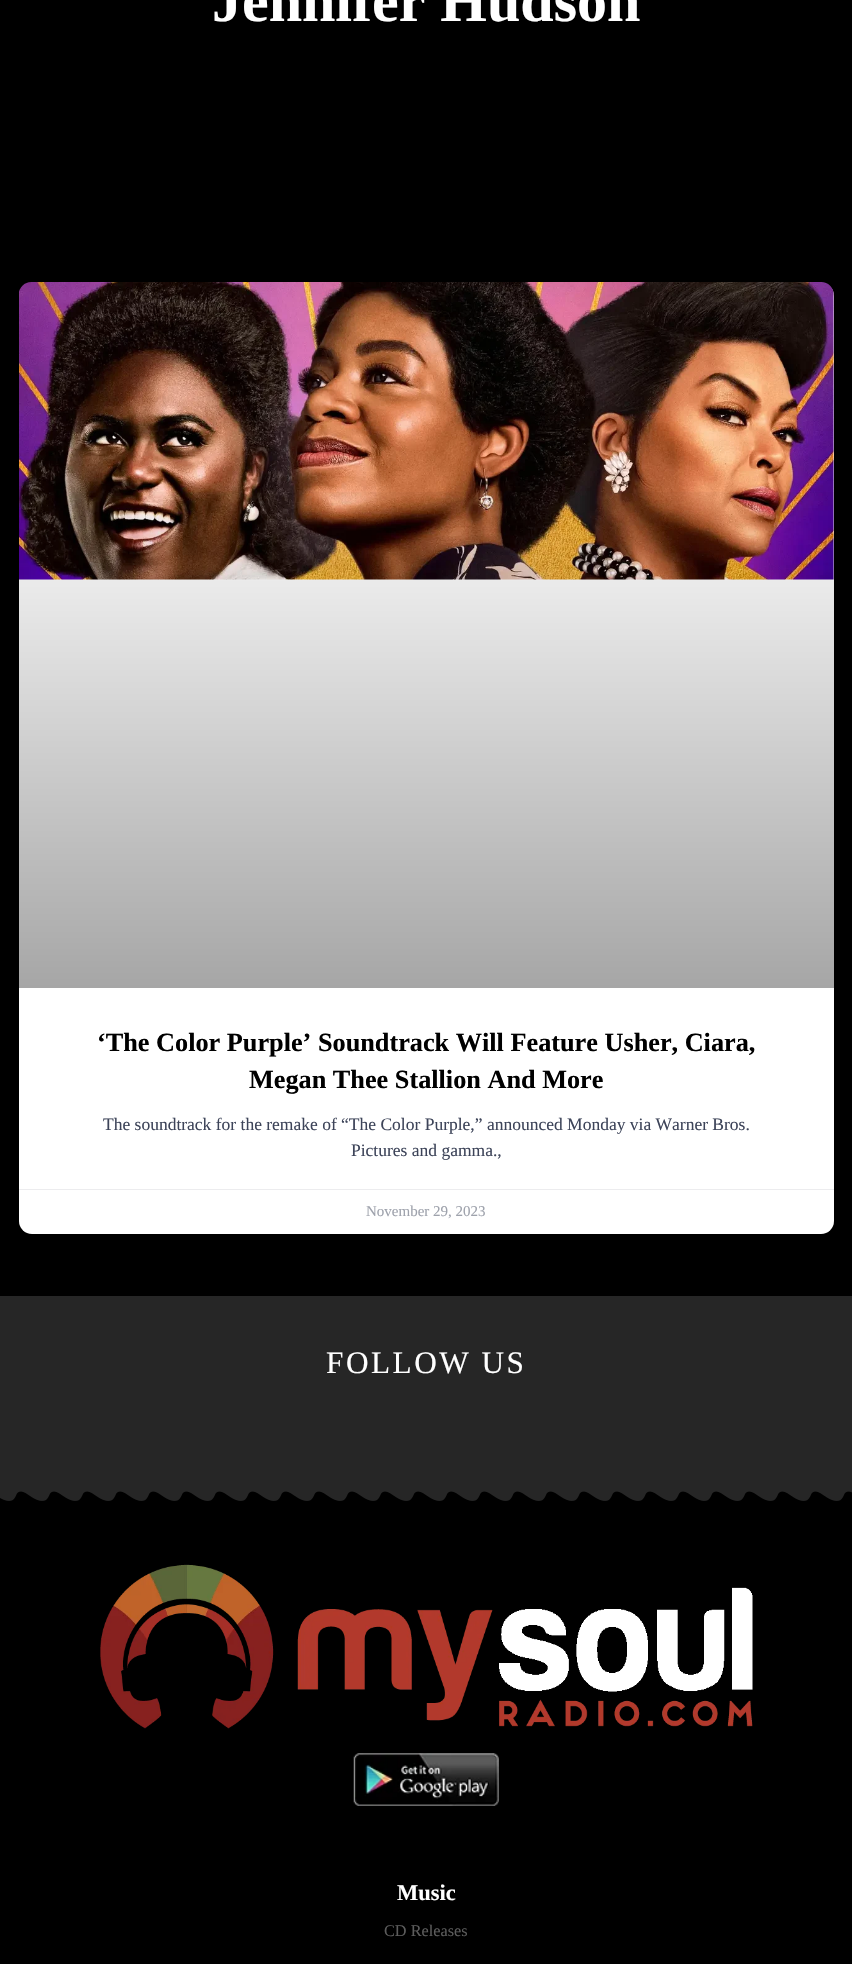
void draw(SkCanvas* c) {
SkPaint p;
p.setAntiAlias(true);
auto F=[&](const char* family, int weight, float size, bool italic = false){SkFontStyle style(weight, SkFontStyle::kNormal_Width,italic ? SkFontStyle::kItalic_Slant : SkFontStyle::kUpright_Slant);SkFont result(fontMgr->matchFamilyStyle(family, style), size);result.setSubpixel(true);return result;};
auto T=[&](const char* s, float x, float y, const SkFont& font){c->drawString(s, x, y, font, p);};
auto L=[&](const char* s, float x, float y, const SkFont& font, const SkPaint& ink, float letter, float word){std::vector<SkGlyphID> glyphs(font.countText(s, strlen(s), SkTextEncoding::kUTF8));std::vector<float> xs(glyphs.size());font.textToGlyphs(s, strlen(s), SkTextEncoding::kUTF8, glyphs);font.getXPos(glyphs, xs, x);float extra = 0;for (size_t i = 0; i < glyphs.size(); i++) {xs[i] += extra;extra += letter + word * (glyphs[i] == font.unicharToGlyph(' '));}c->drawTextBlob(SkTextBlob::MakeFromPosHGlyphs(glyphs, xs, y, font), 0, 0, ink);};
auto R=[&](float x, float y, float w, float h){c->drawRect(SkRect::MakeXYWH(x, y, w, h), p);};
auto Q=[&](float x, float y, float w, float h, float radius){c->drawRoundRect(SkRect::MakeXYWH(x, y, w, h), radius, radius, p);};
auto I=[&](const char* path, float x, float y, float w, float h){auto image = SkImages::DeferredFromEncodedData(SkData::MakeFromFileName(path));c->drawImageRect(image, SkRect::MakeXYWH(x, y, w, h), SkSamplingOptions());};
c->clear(0xff000000);
auto f1 = F("Liberation Serif",700,60);
p.setColor(0xffffffff);
T("Jennifer Hudson",212,21,f1);
Q(19,283,815,951,13);
I("1.png",19,282,815,298);
{
const SkColor colors[] = {0x59000000,0x00000000};
const float stops[] = {0,.75};
const SkPoint ends[] = {{426,988}, {426,283}};
p.setShader(SkGradientShader::MakeLinear(ends, colors, stops, 2, SkTileMode::kClamp));
p.setAlpha(255);
}
R(19,492,815,496);
auto f2 = F("Liberation Serif",700,26.25);
p.setShader(nullptr);
p.setColor(0xff000000);
T("‘The Color Purple’ Soundtrack Will Feature Usher, Ciara,",97,1051,f2);
T("Megan Thee Stallion And More",249,1088,f2);
auto f3 = F("Liberation Serif",400,17.5);
p.setColor(0xff3d4459);
T("The soundtrack for the remake of “The Color Purple,” announced Monday via Warner Bros.",103,1130,f3);
T("Pictures and gamma.,",351,1156,f3);
p.setColor(0xffececee);
R(19,1189,815,1);
auto f4 = F("Liberation Serif",400,15);
p.setColor(0xff9ea2ac);
T("November 29, 2023",366,1216,f4);
p.setColor(0xff262626);
R(0,1296,852,194);
auto f5 = F("Liberation Serif",400,31.25);
p.setColor(0xffffffff);
L("FOLLOW US",326,1373,f5,p,2.5,0);
I("2.png",0,1490,852,11);
I("3.png",100,1564,653,165);
I("4.png",353,1753,146,53);
auto f6 = F("Liberation Serif",700,22.5);
T("Music",397,1900,f6);
auto f7 = F("Liberation Serif",400,16.25);
p.setColor(0xff5c5c5c);
T("CD Releases",384,1936,f7);
}
